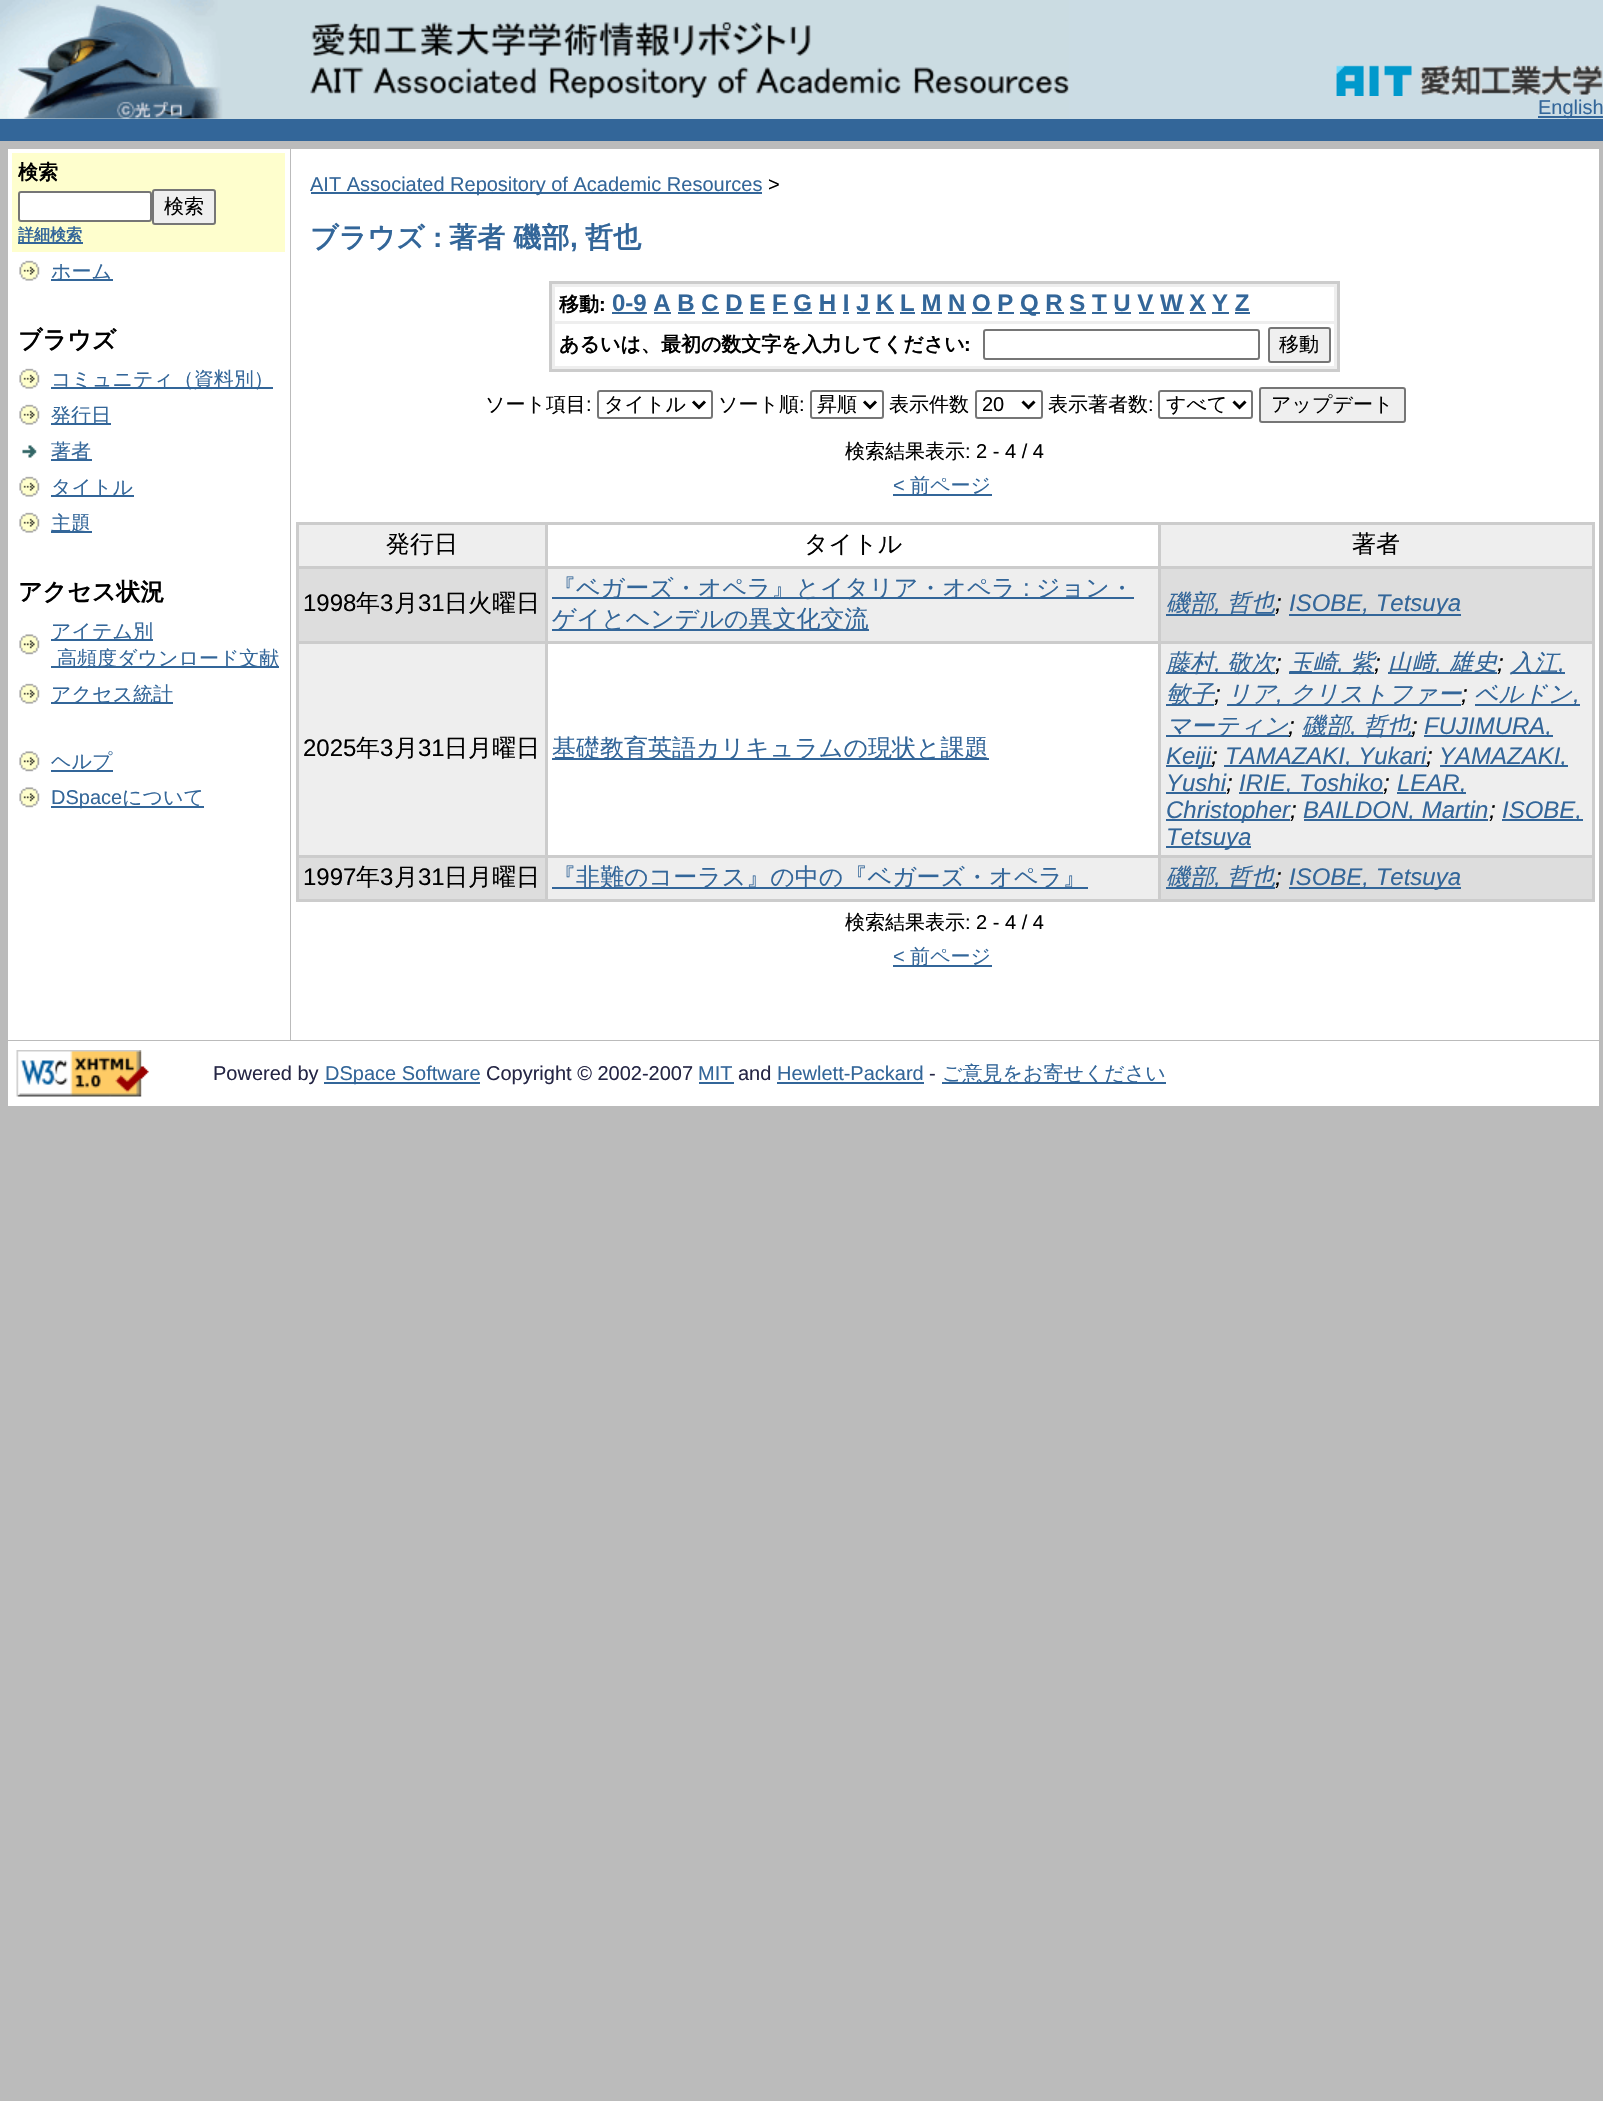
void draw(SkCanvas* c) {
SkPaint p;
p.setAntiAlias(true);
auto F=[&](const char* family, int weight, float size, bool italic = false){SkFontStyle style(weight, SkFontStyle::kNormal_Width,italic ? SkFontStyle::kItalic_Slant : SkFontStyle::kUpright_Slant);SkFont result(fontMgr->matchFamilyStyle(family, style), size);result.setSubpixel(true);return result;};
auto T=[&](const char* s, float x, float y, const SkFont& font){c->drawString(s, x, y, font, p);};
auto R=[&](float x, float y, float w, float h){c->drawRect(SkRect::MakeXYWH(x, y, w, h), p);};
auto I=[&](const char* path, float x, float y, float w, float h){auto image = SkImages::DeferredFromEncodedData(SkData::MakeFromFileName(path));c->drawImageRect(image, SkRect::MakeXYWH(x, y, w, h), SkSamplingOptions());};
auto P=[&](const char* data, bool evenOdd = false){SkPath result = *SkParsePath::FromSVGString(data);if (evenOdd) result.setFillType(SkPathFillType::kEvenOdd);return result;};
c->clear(0xffbbbbbb);
p.setColor(0xffcbdce4);
R(0,0,1603,119);
I("1.png",0,0,1069,119);
I("2.png",1336,65,267,31);
p.setColor(0xff336699);
R(1538,116,65,2);
auto f1 = F("Liberation Sans",400,20);
T("English",1538,114,f1);
R(0,119,1603,22);
p.setColor(0xffffffff);
R(8,149,282,891);
p.setColor(0xfffefecd);
R(12,153,273,99);
auto f2 = F("WenQuanYi Zen Hei",700,20);
p.setColor(0xff000000);
T("検索",18,179,f2);
p.setColor(0xffffffff);
c->drawRoundRect(SkRect::MakeXYWH(19,192,132,29),2,2,p);
p.setStroke(true);
p.setStrokeWidth(2);
p.setColor(0xff767676);
c->drawRoundRect(SkRect::MakeXYWH(19,192,132,29),2,2,p);
p.setStroke(false);
p.setColor(0xffefefef);
c->drawRoundRect(SkRect::MakeXYWH(153,190,62,34),2,2,p);
p.setStroke(true);
p.setColor(0xff767676);
c->drawRoundRect(SkRect::MakeXYWH(153,190,62,34),2,2,p);
auto f3 = F("WenQuanYi Zen Hei",500,20);
p.setStroke(false);
p.setColor(0xff000000);
T("検索",164,213,f3);
p.setColor(0xff336699);
R(18,242,65,2);
auto f4 = F("WenQuanYi Zen Hei",700,16);
T("詳細検索",18,240,f4);
I("3.png",19,260,21,21);
R(51,279,62,2);
T("ホーム",51,278,f3);
auto f5 = F("WenQuanYi Zen Hei",700,24);
p.setColor(0xff000000);
T("ブラウズ",18,348,f5);
I("3.png",19,368,21,21);
p.setColor(0xff336699);
R(51,387,222,2);
T("コミュニティ（資料別）",51,386,f3);
I("3.png",19,404,21,21);
R(51,423,60,2);
T("発行日",51,422,f3);
I("4.png",22,445,15,13);
R(51,459,41,2);
T("著者",51,458,f3);
I("3.png",19,476,21,21);
R(51,495,83,2);
T("タイトル",51,494,f3);
I("3.png",19,512,21,21);
R(51,531,41,2);
T("主題",51,530,f3);
p.setColor(0xff000000);
T("アクセス状況",18,600,f5);
I("5.png",19,634,21,21);
p.setColor(0xff336699);
R(51,639,102,2);
T("アイテム別",51,638,f3);
R(51,666,228,2);
T("高頻度ダウンロード文献",57,665,f3);
I("3.png",19,683,21,21);
R(51,702,122,2);
T("アクセス統計",51,701,f3);
I("5.png",19,751,21,21);
R(51,770,62,2);
T("ヘルプ",51,768,f3);
I("5.png",19,787,21,21);
R(51,806,153,2);
T("DSpace",51,804,f1);
T("について",122,804,f3);
p.setColor(0xffffffff);
R(291,149,1308,891);
p.setColor(0xff336699);
R(311,192,451,2);
T("AIT Associated Repository of Academic Resources",310,191,f1);
p.setColor(0xff000000);
T(">",768,191,f1);
auto f6 = F("WenQuanYi Zen Hei",700,28);
p.setColor(0xff336699);
T("ブラウズ",310,247,f6);
auto f7 = F("Liberation Sans",700,28);
T(":",433,247,f7);
T("著者 磯部",449,247,f6);
T(",",570,247,f7);
T("哲也",585,247,f6);
p.setColor(0xffcccccc);
R(549,281,791,91);
p.setColor(0xffeeeeee);
R(552,284,785,85);
p.setColor(0xffffffff);
R(555,287,779,34);
p.setColor(0xff000000);
T("移動",559,311,f2);
auto f8 = F("Liberation Sans",700,20);
T(":",599,311,f8);
auto f9 = F("Liberation Sans",700,24);
p.setColor(0xff336699);
T("0-9 A B C D E F G H I J K L M N O P",612,311,f9);
R(612,312,35,2);
R(1020,312,20,2);
T("Q R S T U V W X Y Z",1020,311,f9);
R(654,312,17,2);
R(678,312,17,2);
R(702,312,17,2);
R(726,312,17,2);
R(750,312,15,2);
R(773,312,15,2);
R(794,312,18,2);
R(819,312,17,2);
R(843,312,6,2);
R(857,312,13,2);
R(876,312,18,2);
R(900,312,15,2);
R(921,312,21,2);
R(948,312,18,2);
R(972,312,20,2);
R(998,312,16,2);
R(1046,312,18,2);
R(1070,312,16,2);
R(1092,312,15,2);
R(1115,312,16,2);
R(1139,312,15,2);
R(1161,312,23,2);
R(1190,312,16,2);
R(1212,312,17,2);
R(1235,312,15,2);
p.setColor(0xffffffff);
R(555,324,779,42);
p.setColor(0xff000000);
T("あるいは、最初の数文字を入力してください",559,351,f2);
T(":",964,351,f8);
p.setStroke(true);
p.setColor(0xff767676);
c->drawRoundRect(SkRect::MakeXYWH(984,330,275,29),2,2,p);
p.setStroke(false);
p.setColor(0xffefefef);
c->drawRoundRect(SkRect::MakeXYWH(1269,328,61,34),2,2,p);
p.setStroke(true);
p.setColor(0xff767676);
c->drawRoundRect(SkRect::MakeXYWH(1269,328,61,34),2,2,p);
p.setStroke(false);
p.setColor(0xff000000);
T("移動",1279,351,f3);
T("ソート項目",485,411,f3);
T(":",586,411,f1);
p.setStroke(true);
p.setColor(0xff767676);
c->drawRoundRect(SkRect::MakeXYWH(598,391,114,27),2,2,p);
p.setStrokeWidth(3);
p.setColor(0xff000000);
c->drawPath(P("M693 401.5l6 6l6-6"),p);
p.setStroke(false);
T("タイトル",604,411,f3);
T("ソート順",718,411,f3);
T(":",799,411,f1);
p.setStroke(true);
p.setStrokeWidth(2);
p.setColor(0xff767676);
c->drawRoundRect(SkRect::MakeXYWH(811,391,72,27),2,2,p);
p.setStrokeWidth(3);
p.setColor(0xff000000);
c->drawPath(P("M864 401.5l6 6l6-6"),p);
p.setStroke(false);
T("昇順",817,411,f3);
T("表示件数",889,411,f3);
p.setStroke(true);
p.setStrokeWidth(2);
p.setColor(0xff767676);
c->drawRoundRect(SkRect::MakeXYWH(976,391,66,27),2,2,p);
p.setStrokeWidth(3);
p.setColor(0xff000000);
c->drawPath(P("M1022.5 401.5l6 6l6-6"),p);
p.setStroke(false);
T("20",982,411,f1);
T("表示著者数",1048,411,f3);
T(":",1148,411,f1);
p.setStroke(true);
p.setStrokeWidth(2);
p.setColor(0xff767676);
c->drawRoundRect(SkRect::MakeXYWH(1159,391,93,27),2,2,p);
p.setStrokeWidth(3);
p.setColor(0xff000000);
c->drawPath(P("M1233.5 401.5l6 6l6-6"),p);
p.setStroke(false);
T("すべて",1166,411,f3);
p.setColor(0xffefefef);
c->drawRoundRect(SkRect::MakeXYWH(1260,388,145,34),2,2,p);
p.setStroke(true);
p.setStrokeWidth(2);
p.setColor(0xff767676);
c->drawRoundRect(SkRect::MakeXYWH(1260,388,145,34),2,2,p);
p.setStroke(false);
p.setColor(0xff000000);
T("アップデート",1271,411,f3);
T("検索結果表示",845,458,f3);
T(": 2 - 4 / 4",965,458,f1);
p.setColor(0xff336699);
T("<",893,492,f1);
R(893,494,99,2);
T("前ページ",910,492,f3);
p.setColor(0xffcccccc);
R(296,522,1299,380);
p.setColor(0xffeeeeee);
R(299,525,246,41);
auto f10 = F("WenQuanYi Zen Hei",500,24);
p.setColor(0xff000000);
T("発行日",386,552,f10);
p.setColor(0xffffffff);
R(548,525,610,41);
p.setColor(0xff000000);
T("タイトル",804,552,f10);
p.setColor(0xffeeeeee);
R(1161,525,431,41);
p.setColor(0xff000000);
T("著者",1352,552,f10);
p.setColor(0xffdddddd);
R(299,569,246,72);
auto f11 = F("Liberation Sans",400,24);
p.setColor(0xff000000);
T("1998",303,611,f11);
T("年",356,611,f10);
T("3",380,611,f11);
T("月",394,611,f10);
T("31",418,611,f11);
T("日火曜日",444,611,f10);
p.setColor(0xffeeeeee);
R(548,569,610,72);
p.setColor(0xff336699);
R(552,597,582,2);
T("『ベガーズ・オペラ』とイタリア・オペラ",552,596,f10);
T(":",1023,596,f11);
T("ジョン・",1036,596,f10);
R(552,629,317,2);
T("ゲイとヘンデルの異文化交流",552,627,f10);
p.setColor(0xffdddddd);
R(1161,569,431,72);
p.setColor(0xff336699);
R(1166,614,109,2);
auto f12 = F("WenQuanYi Zen Hei",500,24,true);
T("磯部",1166,611,f12);
T("哲也",1227,611,f12);
auto f13 = F("Liberation Sans",400,24,true);
p.setColor(0xff000000);
T(";",1275,611,f13);
p.setColor(0xff336699);
R(1289,614,172,2);
T("ISOBE, Tetsuya",1289,611,f13);
T(",",1214,611,f13);
p.setColor(0xffeeeeee);
R(299,644,246,211);
p.setColor(0xff000000);
T("2025",303,756,f11);
T("年",356,756,f10);
T("3",380,756,f11);
T("月",394,756,f10);
T("31",418,756,f11);
T("日月曜日",444,756,f10);
p.setColor(0xffffffff);
R(548,644,610,211);
p.setColor(0xff336699);
R(552,758,437,2);
T("基礎教育英語カリキュラムの現状と課題",552,756,f10);
p.setColor(0xffeeeeee);
R(1161,644,431,211);
p.setColor(0xff336699);
R(1166,672,109,2);
T("藤村",1166,671,f12);
T("敬次",1227,671,f12);
p.setColor(0xff000000);
T(";",1275,671,f13);
p.setColor(0xff336699);
R(1289,672,85,2);
T("玉崎",1289,671,f12);
T("紫",1350,671,f12);
R(1388,672,109,2);
auto f14 = F("IPAPGothic",400,24,true);
T("山﨑",1387,671,f14);
T("雄史",1449,671,f14);
R(1511,672,54,2);
T("入江",1510,671,f12);
T(",",1214,671,f13);
T(",",1337,671,f13);
p.setColor(0xff000000);
T(";",1374,671,f13);
p.setColor(0xff336699);
T(",",1435,671,f13);
p.setColor(0xff000000);
T(";",1497,671,f13);
p.setColor(0xff336699);
T(",",1558,671,f13);
R(1166,704,48,2);
T("敏子",1166,702,f12);
p.setColor(0xff000000);
T(";",1214,702,f13);
p.setColor(0xff336699);
R(1227,704,234,2);
T("リア",1227,702,f12);
T(",",1276,702,f13);
T("クリストファー",1290,702,f12);
p.setColor(0xff000000);
T(";",1461,702,f13);
p.setColor(0xff336699);
R(1475,704,105,2);
T("ベルドン",1474,702,f12);
T(",",1573,702,f13);
R(1166,735,123,2);
T("マーティン",1166,734,f12);
p.setColor(0xff000000);
T(";",1288,734,f13);
p.setColor(0xff336699);
R(1302,735,110,2);
T("磯部",1302,734,f12);
T("哲也",1363,734,f12);
p.setColor(0xff000000);
T(";",1411,734,f13);
p.setColor(0xff336699);
R(1424,735,129,2);
T("FUJIMURA,",1424,734,f13);
T(",",1350,734,f13);
R(1166,765,46,2);
T("Keiji",1166,764,f13);
p.setColor(0xff000000);
T(";",1211,764,f13);
p.setColor(0xff336699);
R(1224,765,203,2);
T("TAMAZAKI, Yukari",1225,764,f13);
p.setColor(0xff000000);
T(";",1426,764,f13);
p.setColor(0xff336699);
R(1440,765,128,2);
T("YAMAZAKI,",1439,764,f13);
T("Yushi",1166,791,f13);
p.setColor(0xff000000);
T(";",1226,791,f13);
p.setColor(0xff336699);
R(1166,792,60,2);
R(1239,792,144,2);
T("IRIE, Toshiko",1239,791,f13);
p.setColor(0xff000000);
T(";",1383,791,f13);
p.setColor(0xff336699);
R(1397,792,69,2);
T("LEAR,",1397,791,f13);
R(1166,819,124,2);
T("Christopher",1166,818,f13);
p.setColor(0xff000000);
T(";",1290,818,f13);
p.setColor(0xff336699);
R(1304,819,184,2);
T("BAILDON, Martin",1303,818,f13);
p.setColor(0xff000000);
T(";",1489,818,f13);
p.setColor(0xff336699);
R(1502,819,81,2);
T("ISOBE,",1502,818,f13);
R(1166,846,85,2);
T("Tetsuya",1166,845,f13);
p.setColor(0xffdddddd);
R(299,858,246,41);
p.setColor(0xff000000);
T("1997",303,885,f11);
T("年",356,885,f10);
T("3",380,885,f11);
T("月",394,885,f10);
T("31",418,885,f11);
T("日月曜日",444,885,f10);
p.setColor(0xffeeeeee);
R(548,858,610,41);
p.setColor(0xff336699);
R(552,887,536,2);
T("『非難のコーラス』の中の『ベガーズ・オペラ』",552,885,f10);
p.setColor(0xffdddddd);
R(1161,858,431,41);
p.setColor(0xff336699);
R(1166,887,109,2);
T("磯部",1166,885,f12);
T("哲也",1227,885,f12);
p.setColor(0xff000000);
T(";",1275,885,f13);
p.setColor(0xff336699);
R(1289,887,172,2);
T("ISOBE, Tetsuya",1289,885,f13);
T(",",1214,885,f13);
p.setColor(0xff000000);
T("検索結果表示",845,929,f3);
T(": 2 - 4 / 4",965,929,f1);
p.setColor(0xff336699);
T("<",893,963,f1);
R(893,965,99,2);
T("前ページ",910,963,f3);
p.setColor(0xffffffff);
R(8,1041,1591,65);
I("6.png",16,1050,133,47);
p.setColor(0xff252645);
T("Powered by",213,1080,f1);
p.setColor(0xff336699);
R(324,1082,156,2);
T("DSpace Software",325,1080,f1);
p.setColor(0xff252645);
T("Copyright © 2002-2007",486,1080,f1);
p.setColor(0xff336699);
T("MIT",698,1080,f1);
R(699,1082,35,2);
p.setColor(0xff252645);
T("and",738,1080,f1);
p.setColor(0xff336699);
T("Hewlett-Packard",777,1080,f1);
R(777,1082,147,2);
p.setColor(0xff252645);
T("-",929,1080,f1);
p.setColor(0xff336699);
R(942,1082,224,2);
T("ご意見をお寄せください",942,1080,f3);
}
